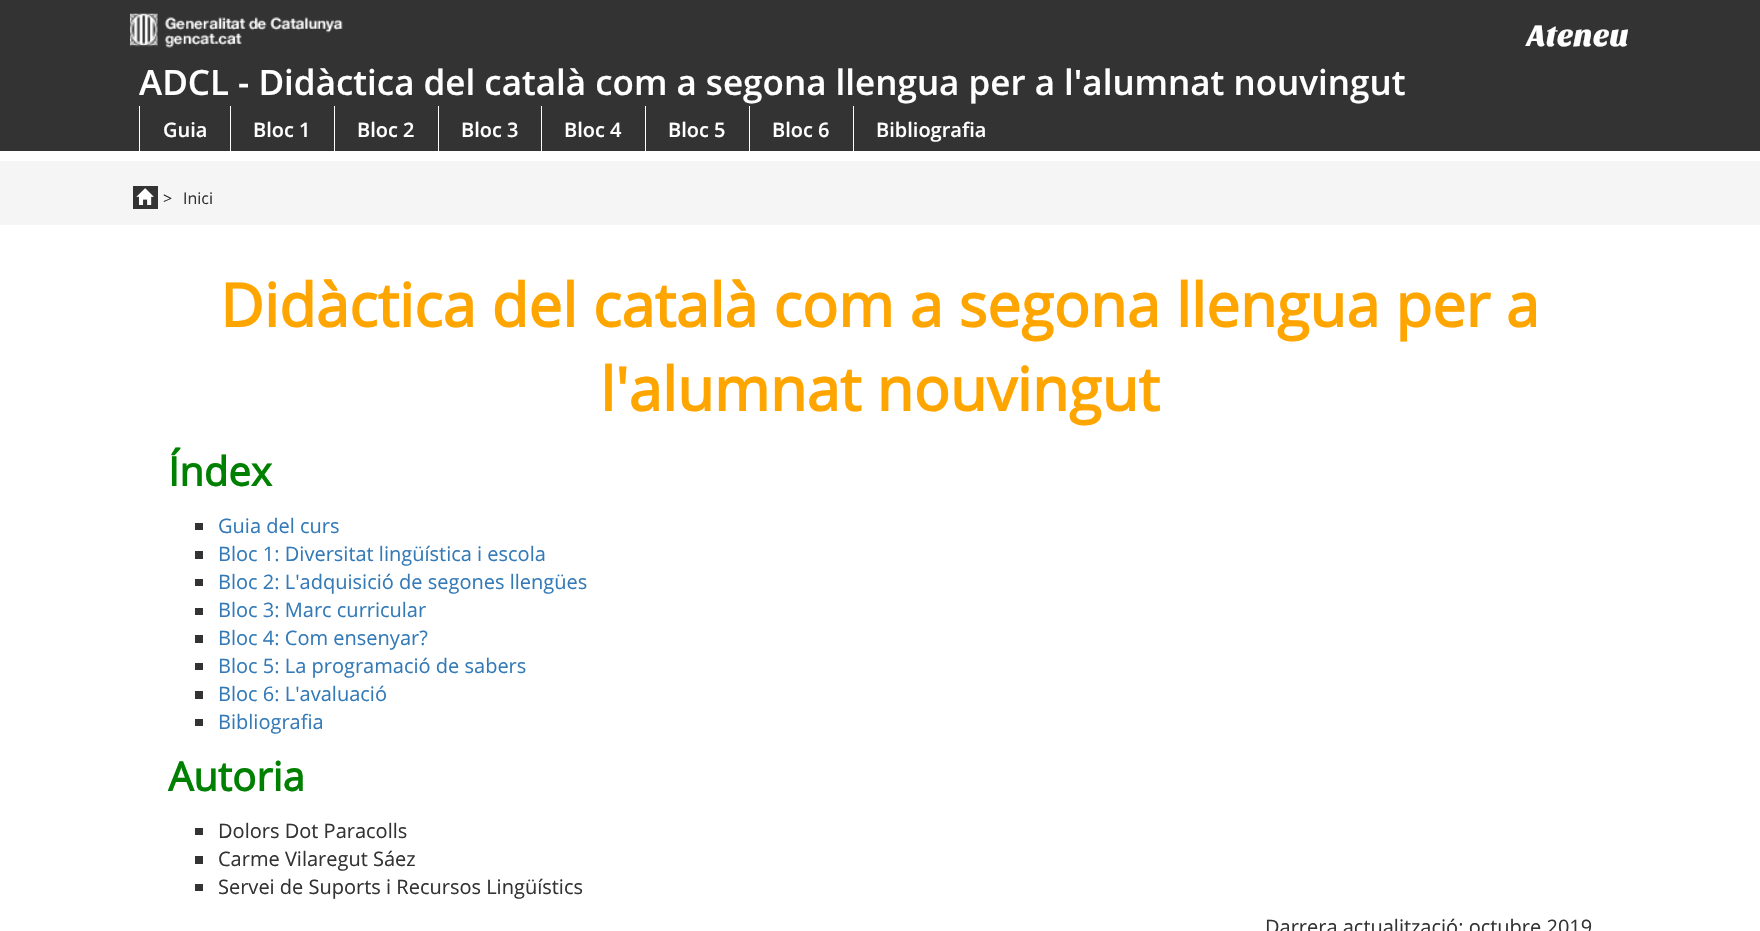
void draw(SkCanvas* c) {
SkPaint p;
p.setAntiAlias(true);
auto F=[&](const char* family, int weight, float size, bool italic = false){SkFontStyle style(weight, SkFontStyle::kNormal_Width,italic ? SkFontStyle::kItalic_Slant : SkFontStyle::kUpright_Slant);SkFont result(fontMgr->matchFamilyStyle(family, style), size);result.setSubpixel(true);return result;};
auto T=[&](const char* s, float x, float y, const SkFont& font){c->drawString(s, x, y, font, p);};
auto R=[&](float x, float y, float w, float h){c->drawRect(SkRect::MakeXYWH(x, y, w, h), p);};
auto I=[&](const char* path, float x, float y, float w, float h){auto image = SkImages::DeferredFromEncodedData(SkData::MakeFromFileName(path));c->drawImageRect(image, SkRect::MakeXYWH(x, y, w, h), SkSamplingOptions());};
c->clear(0xffffffff);
p.setColor(0xff333333);
R(0,0,1760,151);
I("1.png",130,13,213,35);
auto f1 = F("Sansita One",400,31);
p.setColor(0xffffffff);
T("Ateneu",1527,46,f1);
auto f2 = F("Open Sans",600,35);
T("ADCL - Didàctica del català com a segona llengua per a l'alumnat nouvingut",139,95,f2);
R(139,106,1,45);
auto f3 = F("Open Sans",600,20);
T("Guia",163,137,f3);
R(230,106,1,45);
T("Bloc 1",253,137,f3);
R(334,106,1,45);
T("Bloc 2",357,137,f3);
R(438,106,1,45);
T("Bloc 3",461,137,f3);
R(541,106,1,45);
T("Bloc 4",564,137,f3);
R(645,106,1,45);
T("Bloc 5",668,137,f3);
R(749,106,1,45);
T("Bloc 6",772,137,f3);
R(853,106,1,45);
T("Bibliografia",876,137,f3);
p.setColor(0xfff5f5f5);
R(0,161,1760,64);
p.setColor(0xff333333);
R(133,186,25,23);
I("2.png",136,188,18,17);
auto f4 = F("Open Sans",400,16);
T(">",163,204,f4);
T("Inici",183,204,f4);
auto f5 = F("Open Sans",700,60);
p.setColor(0xffffa500);
T("Didàctica del català com a segona llengua per a",220,327,f5);
T("l'alumnat nouvingut",600,411,f5);
auto f6 = F("Open Sans",700,40);
p.setColor(0xff008000);
T("Índex",168,486,f6);
p.setColor(0xff333333);
R(195,523,8,7);
auto f7 = F("Open Sans",400,20);
p.setColor(0xff337ab7);
T("Guia del curs",218,533,f7);
p.setColor(0xff333333);
R(195,551,8,8);
p.setColor(0xff337ab7);
T("Bloc 1: Diversitat lingüística i escola",218,561,f7);
p.setColor(0xff333333);
R(195,579,8,7);
p.setColor(0xff337ab7);
T("Bloc 2: L'adquisició de segones llengües",218,589,f7);
p.setColor(0xff333333);
R(195,608,8,7);
p.setColor(0xff337ab7);
T("Bloc 3: Marc curricular",218,617,f7);
p.setColor(0xff333333);
R(195,635,8,8);
p.setColor(0xff337ab7);
T("Bloc 4: Com ensenyar?",218,645,f7);
p.setColor(0xff333333);
R(195,663,8,7);
p.setColor(0xff337ab7);
T("Bloc 5: La programació de sabers",218,673,f7);
p.setColor(0xff333333);
R(195,691,8,8);
p.setColor(0xff337ab7);
T("Bloc 6: L'avaluació",218,701,f7);
p.setColor(0xff333333);
R(195,719,8,7);
p.setColor(0xff337ab7);
T("Bibliografia",218,729,f7);
p.setColor(0xff008000);
T("Autoria",168,791,f6);
p.setColor(0xff333333);
R(195,828,8,7);
T("Dolors Dot Paracolls",218,838,f7);
R(195,856,8,8);
T("Carme Vilaregut Sáez",218,866,f7);
R(195,884,8,7);
T("Servei de Suports i Recursos Lingüístics",218,894,f7);
T("Darrera actualització: octubre 2019",1265,934,f7);
}
